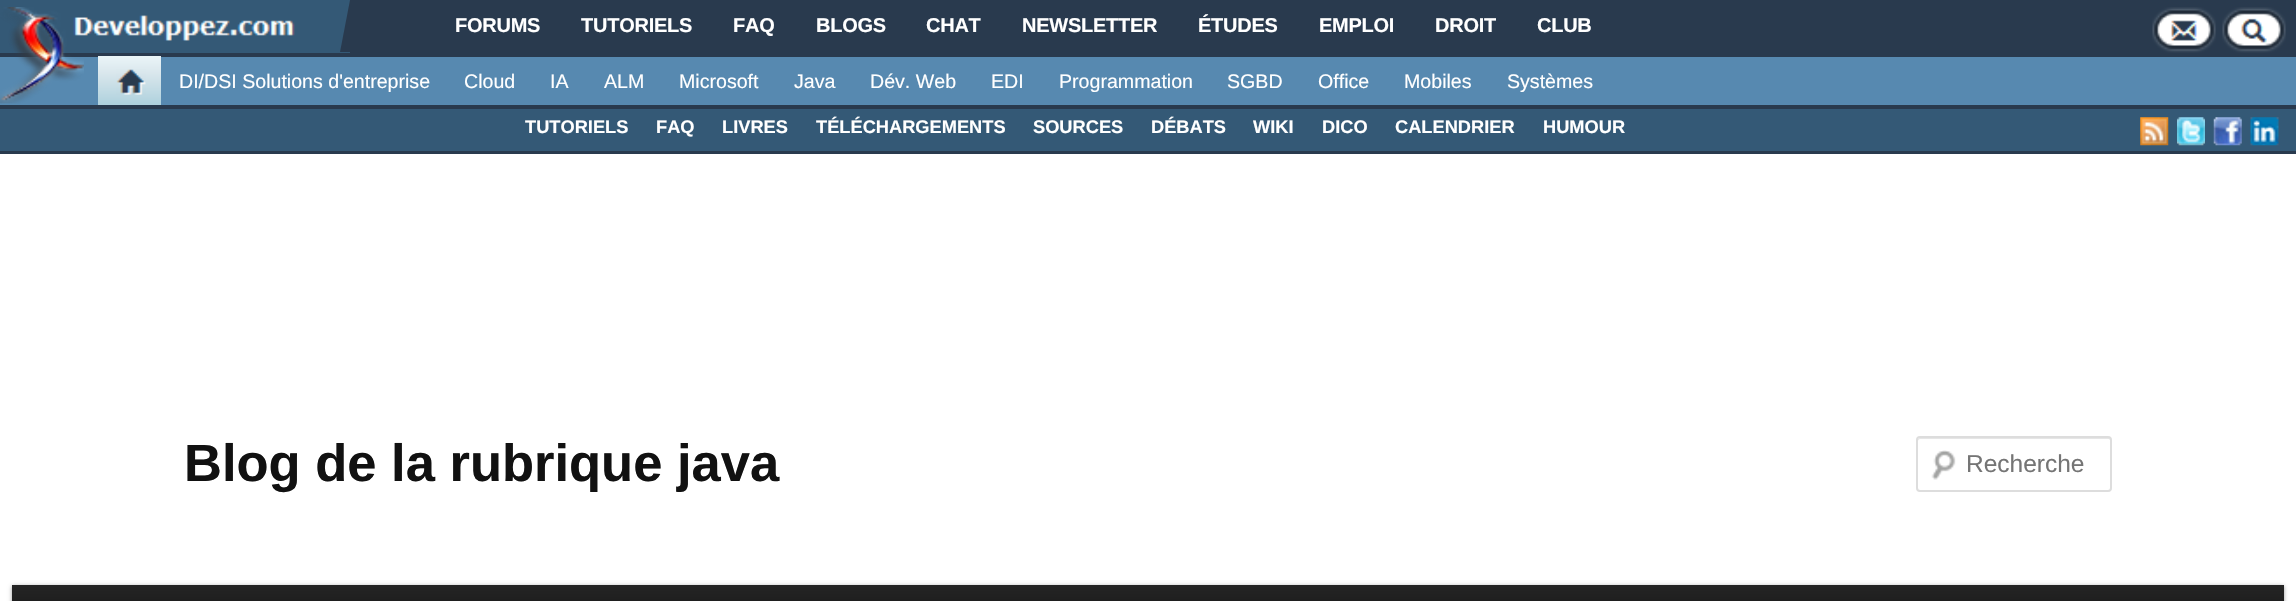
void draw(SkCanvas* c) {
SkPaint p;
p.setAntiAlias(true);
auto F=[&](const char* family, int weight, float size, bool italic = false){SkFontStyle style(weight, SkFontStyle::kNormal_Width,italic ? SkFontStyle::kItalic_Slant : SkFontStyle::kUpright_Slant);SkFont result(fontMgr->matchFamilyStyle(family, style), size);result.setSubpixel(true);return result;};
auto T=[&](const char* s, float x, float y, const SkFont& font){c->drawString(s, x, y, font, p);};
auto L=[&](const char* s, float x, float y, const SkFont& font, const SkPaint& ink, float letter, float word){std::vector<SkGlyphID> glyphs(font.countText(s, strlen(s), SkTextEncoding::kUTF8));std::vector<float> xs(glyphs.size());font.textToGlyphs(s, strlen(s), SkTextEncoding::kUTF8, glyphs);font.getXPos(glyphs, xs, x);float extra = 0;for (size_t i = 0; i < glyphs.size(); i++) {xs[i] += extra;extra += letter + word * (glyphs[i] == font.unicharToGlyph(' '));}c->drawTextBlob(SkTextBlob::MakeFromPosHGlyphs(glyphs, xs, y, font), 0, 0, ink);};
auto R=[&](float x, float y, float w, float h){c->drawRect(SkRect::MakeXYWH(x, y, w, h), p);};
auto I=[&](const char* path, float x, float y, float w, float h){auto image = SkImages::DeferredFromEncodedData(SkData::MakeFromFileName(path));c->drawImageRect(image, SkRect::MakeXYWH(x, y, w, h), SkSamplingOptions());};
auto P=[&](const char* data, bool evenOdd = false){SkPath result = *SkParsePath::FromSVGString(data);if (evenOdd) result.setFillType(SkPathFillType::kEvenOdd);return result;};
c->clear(0xff293a4e);
p.setColor(0xff345976);
R(0,0,350,53);
I("2.png",73,15,222,26);
p.setColor(0xff5789b0);
R(0,57,2296,48);
I("1.png",0,7,84,97);
p.setColor(0xff293a4e);
c->drawPath(P("M350 52h-10l10-52z"),p);
auto f1 = F("Liberation Sans",700,20);
p.setColor(0xffffffff);
L("FORUMS",455,32,f1,p,-.25,0);
L("TUTORIELS",581,32,f1,p,-.25,0);
L("FAQ",733,32,f1,p,-.25,0);
L("BLOGS",816,32,f1,p,-.25,0);
L("CHAT",926,32,f1,p,-.25,0);
L("NEWSLETTER",1022,32,f1,p,-.25,0);
L("ÉTUDES",1198,32,f1,p,-.25,0);
L("EMPLOI",1319,32,f1,p,-.25,0);
L("DROIT",1435,32,f1,p,-.25,0);
L("CLUB",1537,32,f1,p,-.25,0);
I("3.png",2152,7,64,46);
I("4.png",2222,7,64,46);
{
const SkColor colors[] = {0xffeaf5f8,0xffd8e6ec,0xffaed1dd};
const float stops[] = {0,.37,1};
const SkPoint ends[] = {{130,56}, {130,105}};
p.setShader(SkGradientShader::MakeLinear(ends, colors, stops, 3, SkTileMode::kClamp));
p.setAlpha(255);
}
R(98,56,63,49);
I("5.png",116,69,30,26);
auto f2 = F("Liberation Sans",400,19.6);
p.setShader(nullptr);
p.setColor(0xffffffff);
T("DI/DSI Solutions d'entreprise",179,88,f2);
T("Cloud",464,88,f2);
T("IA",550,88,f2);
T("ALM",604,88,f2);
T("Microsoft",679,88,f2);
T("Java",794,88,f2);
T("Dév. Web",870,88,f2);
T("EDI",991,88,f2);
T("Programmation",1059,88,f2);
T("SGBD",1227,88,f2);
T("Office",1318,88,f2);
T("Mobiles",1404,88,f2);
T("Systèmes",1507,88,f2);
p.setColor(0xff345976);
R(0,109,2296,42);
auto f3 = F("Liberation Sans",700,18.25);
p.setColor(0xffffffff);
T("TUTORIELS",525,133,f3);
T("FAQ",656,133,f3);
T("LIVRES",722,133,f3);
T("TÉLÉCHARGEMENTS",816,133,f3);
T("SOURCES",1033,133,f3);
T("DÉBATS",1151,133,f3);
T("WIKI",1253,133,f3);
T("DICO",1322,133,f3);
T("CALENDRIER",1395,133,f3);
T("HUMOUR",1543,133,f3);
I("6.png",2140,117,29,29);
I("7.png",2177,117,28,29);
I("8.png",2213,117,29,29);
I("9.png",2250,117,29,29);
R(0,154,2296,447);
auto f4 = F("Liberation Sans",700,52.5);
p.setColor(0xff111111);
T("Blog de la rubrique java",184,481,f4);
I("10.png",1931,450,25,30);
p.setColor(0xffe6e6e6);
c->drawPath(P("M1920 439h189c1 0 1 1 1 2v49c1-1 1-1 1-2v-48c0-1-1-2-2-2h-189c-1 0-2 1-2 2v1c0-1 1-2 2-2z"),p);
p.setStroke(true);
p.setStrokeWidth(2);
p.setColor(0xffdddddd);
c->drawRoundRect(SkRect::MakeXYWH(1917,437,194,54),3,3,p);
auto f5 = F("Liberation Sans",400,24.5);
p.setStroke(false);
p.setColor(0xff757575);
T("Recherche",1966,472,f5);
p.setColor(0x66000000);
p.setMaskFilter(SkMaskFilter::MakeBlur(kNormal_SkBlurStyle, 2));
c->drawRect(SkRect::MakeXYWH(12,586,2272,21),p);
p.setMaskFilter(nullptr);
{
const SkColor colors[] = {0xff252525,0xff0a0a0a};
const float stops[] = {0,1};
const SkPoint ends[] = {{1148,584}, {1148,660}};
p.setShader(SkGradientShader::MakeLinear(ends, colors, stops, 2, SkTileMode::kClamp));
p.setAlpha(255);
}
R(12,585,2272,16);
}
